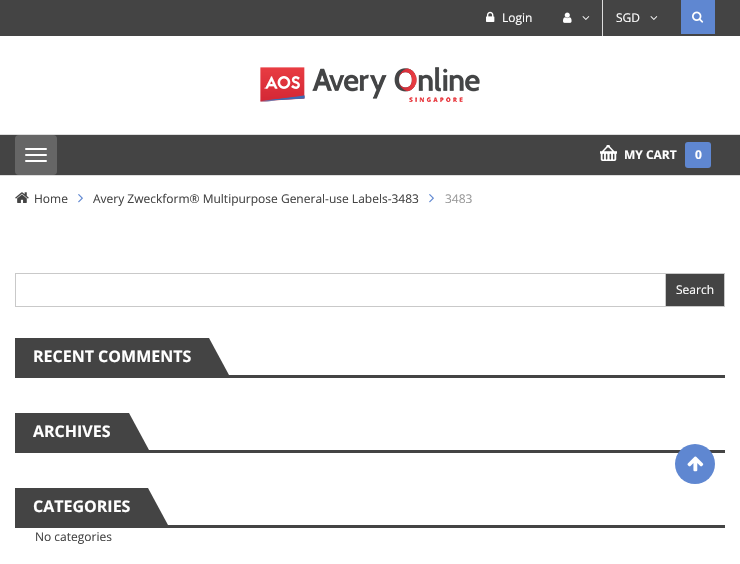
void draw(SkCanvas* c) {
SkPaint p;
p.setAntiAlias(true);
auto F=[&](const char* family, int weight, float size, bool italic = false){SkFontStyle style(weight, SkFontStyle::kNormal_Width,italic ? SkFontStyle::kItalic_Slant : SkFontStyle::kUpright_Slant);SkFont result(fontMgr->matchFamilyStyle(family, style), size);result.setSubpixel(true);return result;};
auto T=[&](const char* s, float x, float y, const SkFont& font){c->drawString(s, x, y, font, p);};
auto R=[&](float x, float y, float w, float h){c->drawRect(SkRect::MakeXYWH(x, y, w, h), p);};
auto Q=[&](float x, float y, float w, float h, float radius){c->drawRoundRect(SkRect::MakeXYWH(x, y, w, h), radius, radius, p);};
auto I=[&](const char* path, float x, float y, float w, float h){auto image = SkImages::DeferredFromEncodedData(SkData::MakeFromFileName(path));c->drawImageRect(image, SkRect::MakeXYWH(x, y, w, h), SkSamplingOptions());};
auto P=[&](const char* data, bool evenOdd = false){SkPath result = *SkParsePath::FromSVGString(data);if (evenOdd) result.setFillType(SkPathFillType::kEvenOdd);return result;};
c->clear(0xffffffff);
p.setColor(0xff444444);
R(0,0,740,36);
I("1.png",486,11,9,11);
auto f1 = F("Open Sans",400,12);
p.setColor(0xffffffff);
T("Login",502,22,f1);
I("2.png",563,12,9,11);
I("3.png",582,16,8,4);
p.setColor(0xffdddddd);
R(602,0,1,36);
p.setColor(0xffffffff);
T("SGD",616,22,f1);
I("3.png",650,16,8,4);
p.setColor(0xff5f87d1);
R(681,0,34,34);
I("4.png",692,11,12,12);
I("5.png",260,67,220,35);
p.setColor(0xff444444);
R(0,135,740,40);
p.setColor(0xffdddddd);
R(0,134,740,1);
R(0,175,740,1);
p.setColor(0xff666666);
Q(15,135,42,40,4);
p.setColor(0xffffffff);
Q(25,148,22,2,1);
Q(25,154,22,2,1);
Q(25,160,22,2,1);
I("6.png",600,145,17,16);
auto f2 = F("Open Sans",700,12);
T("MY CART",624,159,f2);
p.setColor(0xff5f87d1);
Q(685,142,26,26,3);
p.setColor(0xffffffff);
T("0",695,159,f2);
I("7.png",15,192,14,11);
p.setColor(0xff444444);
T("Home",34,203,f1);
I("8.png",78,194,5,9);
T("Avery Zweckform® Multipurpose General-use Labels-3483",93,203,f1);
I("8.png",429,194,5,9);
p.setColor(0xff999999);
T("3483",445,203,f1);
p.setStroke(true);
p.setStrokeWidth(1);
p.setColor(0xffc9c9c9);
c->drawRect(SkRect::MakeXYWH(15.5,273.5,709,33),p);
p.setStroke(false);
p.setColor(0xff444444);
c->drawRect(SkRect::MakeXYWH(665.5,273.5,59,33),p);
p.setStroke(true);
p.setColor(0xffc9c9c9);
c->drawRect(SkRect::MakeXYWH(665.5,273.5,59,33),p);
p.setStroke(false);
p.setColor(0xffffffff);
T("Search",676,294,f1);
p.setColor(0xff444444);
R(15,375,710,3);
R(15,338,194,37);
auto f3 = F("Open Sans",700,16);
p.setColor(0xffffffff);
T("RECENT COMMENTS",33,362,f3);
p.setColor(0xff444444);
c->drawPath(P("M229 375h-20v-37z"),p);
R(15,450,710,3);
R(15,413,114,37);
p.setColor(0xffffffff);
T("ARCHIVES",33,437,f3);
p.setColor(0xff444444);
c->drawPath(P("M149 450h-20v-37z"),p);
R(15,525,710,3);
R(15,488,133,37);
p.setColor(0xffffffff);
T("CATEGORIES",33,512,f3);
p.setColor(0xff444444);
c->drawPath(P("M168 525h-20v-37z"),p);
T("No categories",35,541,f1);
p.setColor(0xff5f87d1);
c->drawCircle(695,464,20,p);
I("9.png",687,456,17,16);
}
